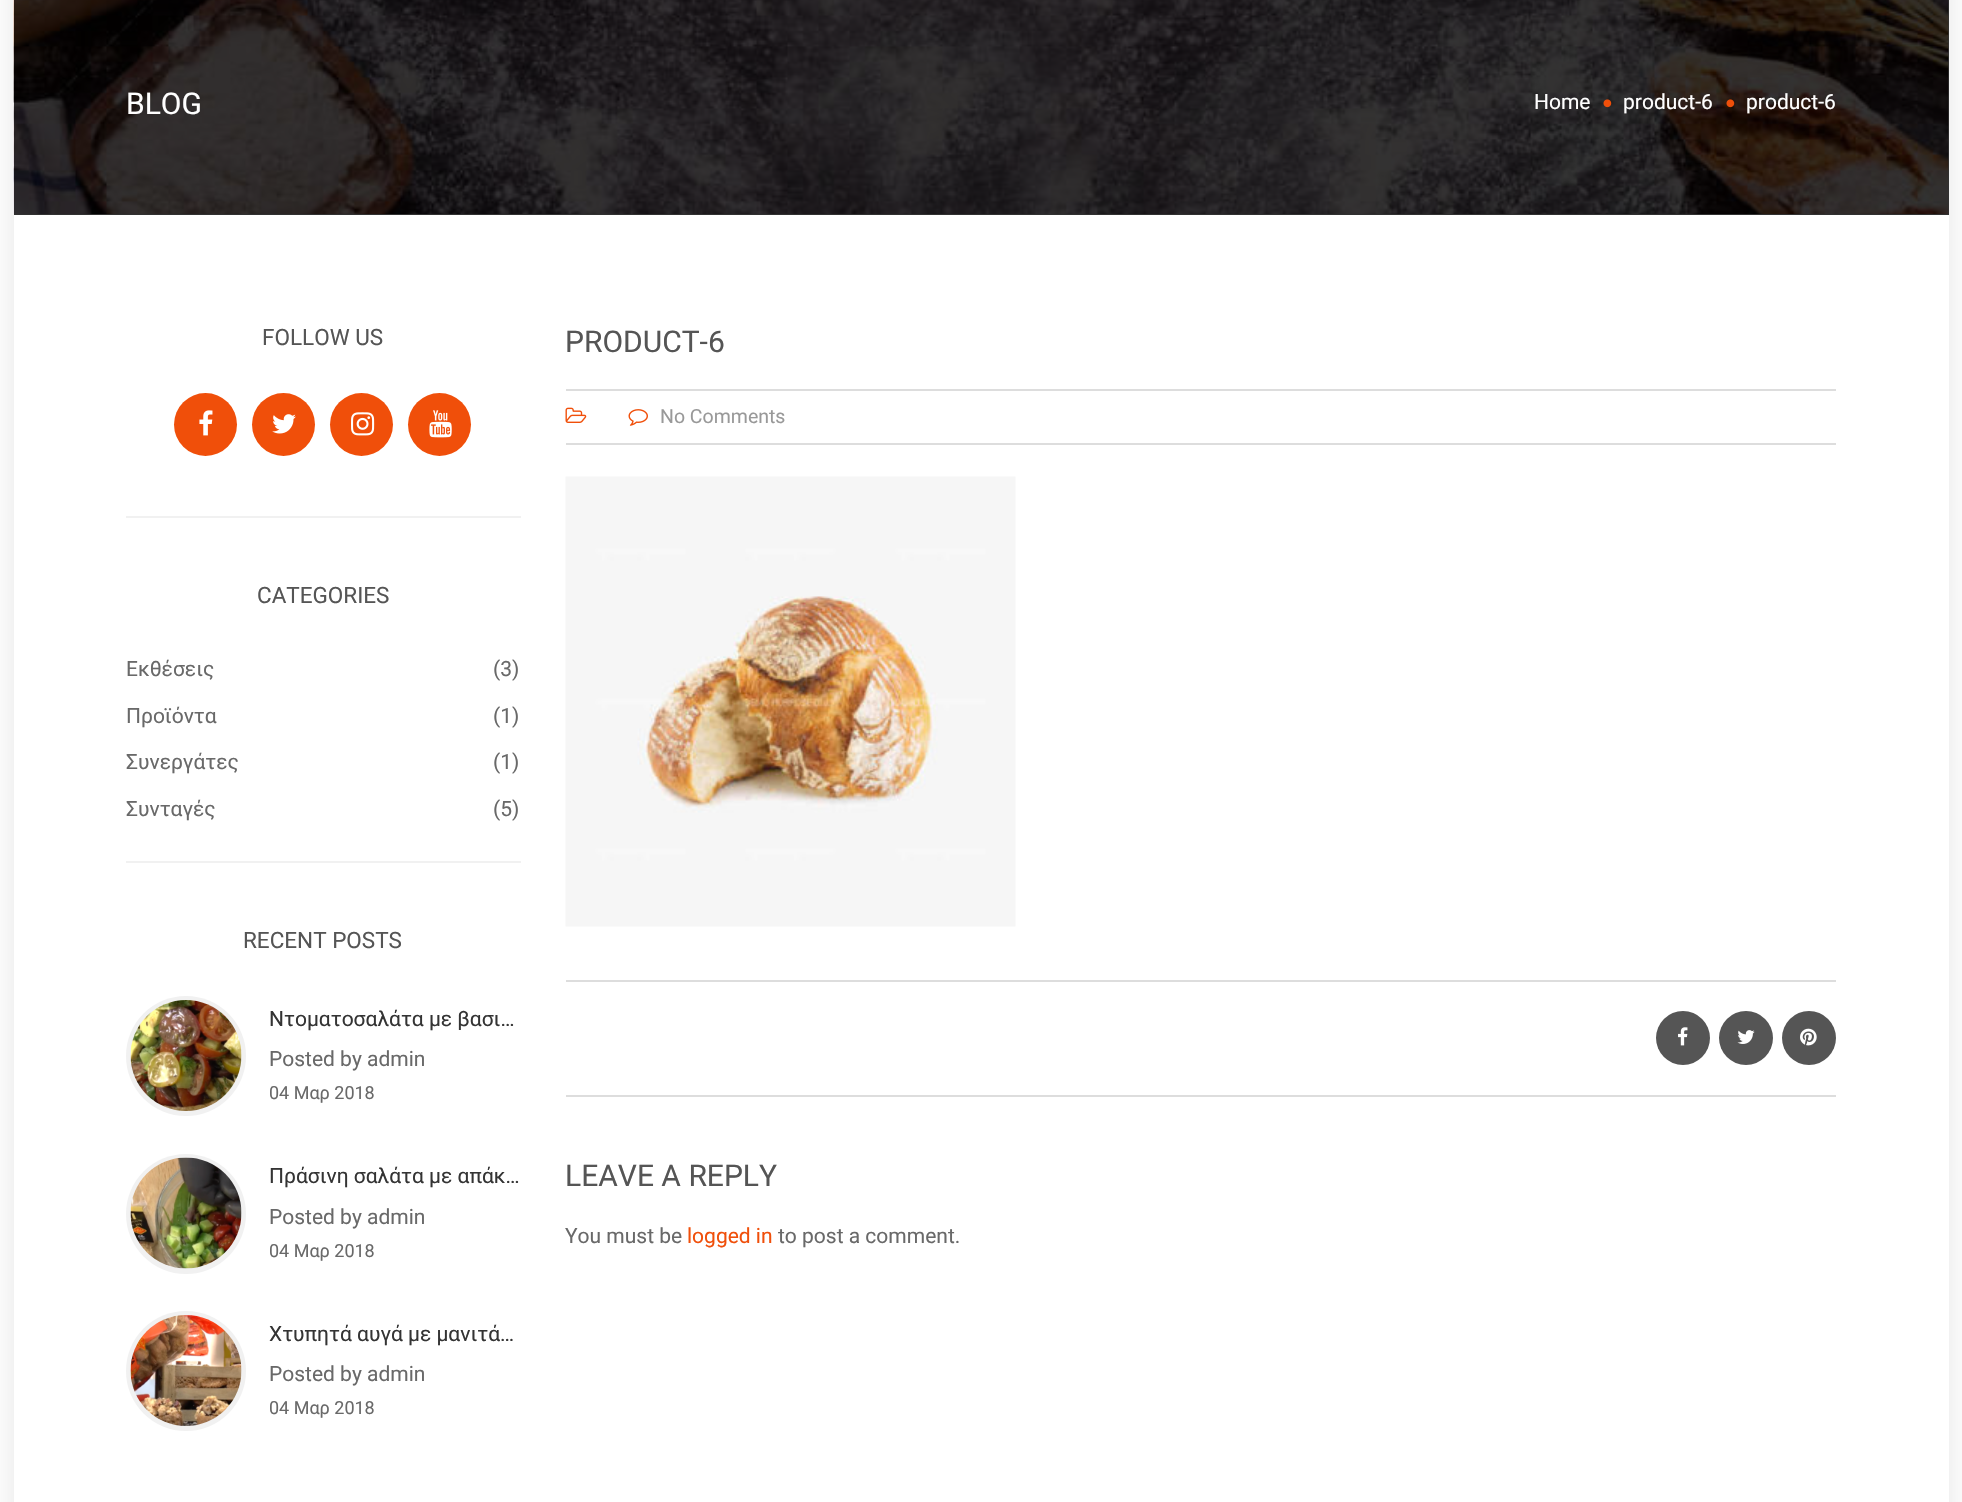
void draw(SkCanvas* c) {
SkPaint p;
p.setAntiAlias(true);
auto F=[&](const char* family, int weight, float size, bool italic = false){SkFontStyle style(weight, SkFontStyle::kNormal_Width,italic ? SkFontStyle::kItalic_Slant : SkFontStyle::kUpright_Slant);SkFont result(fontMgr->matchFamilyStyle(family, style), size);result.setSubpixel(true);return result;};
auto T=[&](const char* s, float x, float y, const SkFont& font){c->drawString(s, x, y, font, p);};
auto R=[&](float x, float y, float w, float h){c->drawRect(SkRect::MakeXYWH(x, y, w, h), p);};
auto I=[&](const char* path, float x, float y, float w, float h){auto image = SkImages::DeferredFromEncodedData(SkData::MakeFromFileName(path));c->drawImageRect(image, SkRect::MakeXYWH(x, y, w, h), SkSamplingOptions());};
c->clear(0xffffffff);
p.setColor(0x1a020202);
p.setMaskFilter(SkMaskFilter::MakeBlur(kNormal_SkBlurStyle, 14));
c->drawRect(SkRect::MakeXYWH(14,-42,1935,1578),p);
p.setMaskFilter(nullptr);
p.setColor(0xffffffff);
R(14,215,1935,1287);
p.setColor(0xfff5f5f5);
R(14,0,1935,215);
I("1.png",13,0,1936,214);
p.setColor(0xcc000000);
R(14,0,1935,215);
auto f1 = F("Roboto",400,30);
p.setColor(0xffffffff);
T("BLOG",126,114,f1);
auto f2 = F("Roboto",400,21);
T("Home",1534,109,f2);
I("2.png",1603,99,9,9);
T("product-6",1623,109,f2);
I("3.png",1726,99,9,9);
T("product-6",1746,109,f2);
p.setColor(0xfff1f1f1);
R(126,516,395,2);
auto f3 = F("Roboto",400,22.5);
p.setColor(0xff555555);
T("FOLLOW US",262,345,f3);
p.setColor(0xfff04f0a);
c->drawCircle(205.5,424.5,31.5,p);
I("4.png",199,410,14,26);
c->drawCircle(283.5,424.5,31.5,p);
I("5.png",272,414,24,20);
c->drawCircle(361.5,424.5,31.5,p);
I("6.png",351,412,24,24);
c->drawCircle(439.5,424.5,31.5,p);
I("7.png",429,410,23,28);
p.setColor(0xfff1f1f1);
R(126,861,395,2);
p.setColor(0xff555555);
T("CATEGORIES",257,603,f3);
p.setColor(0xff696969);
T("Εκθέσεις",126,676,f2);
T("(3)",493,676,f2);
T("Προϊόντα",126,723,f2);
T("(1)",493,723,f2);
T("Συνεργάτες",126,769,f2);
T("(1)",493,769,f2);
T("Συνταγές",126,816,f2);
T("(5)",493,816,f2);
p.setColor(0xff555555);
T("RECENT POSTS",243,948,f3);
p.setColor(0xfff1f1f1);
c->drawCircle(186,1056,60,p);
I("8.png",130,1000,112,111);
p.setColor(0xff343434);
T("Ντοματοσαλάτα με βασι…",269,1026,f2);
p.setColor(0xff696969);
T("Posted by admin",269,1066,f2);
auto f4 = F("Roboto",400,18);
T("04 Μαρ 2018",269,1099,f4);
p.setColor(0xfff1f1f1);
c->drawCircle(186,1214,60,p);
I("9.png",130,1157,112,112);
p.setColor(0xff343434);
T("Πράσινη σαλάτα με απάκ…",269,1183,f2);
p.setColor(0xff696969);
T("Posted by admin",269,1224,f2);
T("04 Μαρ 2018",269,1257,f4);
p.setColor(0xfff1f1f1);
c->drawCircle(186,1371,60,p);
I("10.png",130,1315,112,111);
p.setColor(0xff343434);
T("Χτυπητά αυγά με μανιτά…",269,1341,f2);
p.setColor(0xff696969);
T("Posted by admin",269,1381,f2);
T("04 Μαρ 2018",269,1414,f4);
p.setColor(0xff555555);
T("PRODUCT-6",565,352,f1);
p.setColor(0xffdddddd);
R(566,389,1270,2);
R(566,443,1270,2);
I("11.png",565,407,22,16);
I("12.png",628,409,20,17);
auto f5 = F("Roboto",400,19.5);
p.setColor(0xff999999);
T("No Comments",660,423,f5);
I("13.png",565,476,451,451);
p.setColor(0xffdddddd);
R(566,980,1270,2);
R(566,1095,1270,2);
p.setColor(0xff555555);
c->drawCircle(1683,1038,27,p);
I("14.png",1678,1027,10,19);
c->drawCircle(1746,1038,27,p);
I("15.png",1737,1030,18,14);
c->drawCircle(1809,1038,27,p);
I("16.png",1800,1028,17,18);
T("LEAVE A REPLY",565,1186,f1);
p.setColor(0xff696969);
T("You must be",565,1243,f2);
p.setColor(0xfff04f0a);
T("logged in",687,1243,f2);
p.setColor(0xff696969);
T("to post a comment.",778,1243,f2);
}
